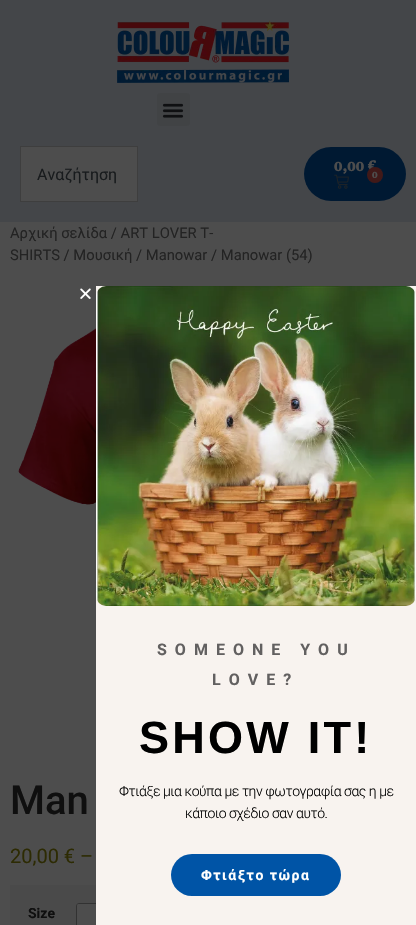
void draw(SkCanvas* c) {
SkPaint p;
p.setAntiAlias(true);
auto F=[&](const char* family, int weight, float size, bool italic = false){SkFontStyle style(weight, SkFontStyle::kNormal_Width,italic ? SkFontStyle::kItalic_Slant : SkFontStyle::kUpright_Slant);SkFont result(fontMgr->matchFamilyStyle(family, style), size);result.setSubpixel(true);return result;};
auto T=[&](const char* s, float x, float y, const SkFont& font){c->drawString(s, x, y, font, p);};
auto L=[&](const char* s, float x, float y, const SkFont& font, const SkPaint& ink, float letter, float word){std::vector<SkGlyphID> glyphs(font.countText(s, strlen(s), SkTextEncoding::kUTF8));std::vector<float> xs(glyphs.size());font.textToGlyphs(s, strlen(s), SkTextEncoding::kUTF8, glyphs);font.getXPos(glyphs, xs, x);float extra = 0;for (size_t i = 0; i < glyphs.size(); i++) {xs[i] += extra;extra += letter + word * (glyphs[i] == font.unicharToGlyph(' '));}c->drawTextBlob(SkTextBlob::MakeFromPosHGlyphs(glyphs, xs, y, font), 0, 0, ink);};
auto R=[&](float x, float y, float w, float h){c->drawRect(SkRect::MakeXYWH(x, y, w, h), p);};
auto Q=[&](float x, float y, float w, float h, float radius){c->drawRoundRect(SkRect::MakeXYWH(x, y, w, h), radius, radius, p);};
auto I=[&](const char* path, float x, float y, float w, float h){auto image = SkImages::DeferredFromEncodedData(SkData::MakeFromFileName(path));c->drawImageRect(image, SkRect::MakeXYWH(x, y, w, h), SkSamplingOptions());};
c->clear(0xff4d4d4d);
p.setColor(0xff444649);
R(0,0,416,222);
I("1.png",117,20,172,63);
p.setColor(0xff414345);
Q(157,93,33,33,3);
I("2.png",162,103,22,15);
p.setColor(0xff4d4d4d);
c->drawRect(SkRect::MakeXYWH(20.5,146.5,117,55),p);
p.setStroke(true);
p.setStrokeWidth(1);
p.setColor(0xff3e3e3e);
c->drawRect(SkRect::MakeXYWH(20.5,146.5,117,55),p);
auto f1 = F("Roboto",400,16);
p.setStroke(false);
p.setColor(0xff181b1d);
T("Αναζήτηση",37,180,f1);
p.setColor(0xff001932);
Q(304,147,102,54,27);
auto f2 = F("Roboto Serif",700,15);
p.setColor(0xff4d4d4d);
T("0,00 €",334,171,f2);
I("3.png",334,174,15,15);
p.setColor(0xff411918);
c->drawCircle(375,175,8,p);
auto f3 = F("Roboto Serif",700,10);
p.setColor(0xff4d4d4d);
T("0",372,178,f3);
auto f4 = F("Roboto",400,14.75);
p.setColor(0xff232323);
T("Αρχική σελίδα / ART LOVER T-",10,238,f4);
T("SHIRTS / Μουσική / Manowar / Manowar (54)",10,260,f4);
I("4.png",18,328,78,177);
auto f5 = F("Roboto",500,40);
p.setColor(0xff0f0f0f);
T("Man",10,814,f5);
auto f6 = F("Roboto",400,20);
p.setColor(0xff2d2b03);
T("20,00 € –",10,863,f6);
p.setColor(0xff4a4a4a);
R(10,885,86,40);
auto f7 = F("Roboto",700,14);
p.setColor(0xff0f0f0f);
T("Size",28,918,f7);
p.setStroke(true);
p.setColor(0xff323232);
c->drawRoundRect(SkRect::MakeXYWH(76.5,903.5,41,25),2.5,2.5,p);
p.setStroke(false);
p.setColor(0xff4d4d4d);
Q(77,904,40,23,2);
p.setColor(0xfff8f3ef);
R(96,286,320,639);
I("5.png",80,288,11,11);
I("6.png",96,286,320,320);
auto f8 = F("Roboto",700,16);
p.setColor(0xff626060);
L("SOMEONE YOU",157,655,f8,p,8,0);
L("LOVE?",212,685,f8,p,8,0);
auto f9 = F("Liberation Sans",700,45);
p.setColor(0xff000000);
L("SHOW IT!",139,753,f9,p,3.25,0);
auto f10 = F("Roboto",300,14);
L("Φτιάξε μια κούπα με την φωτογραφία σας η με",119,796,f10,p,-.45,0);
L("κάποιο σχέδιο σαν αυτό.",185,818,f10,p,-.45,0);
p.setColor(0xff0054a6);
Q(171,854,170,42,21);
p.setColor(0xffffffff);
L("Φτιάξτο τώρα",201,880,f7,p,1.5,0);
}
